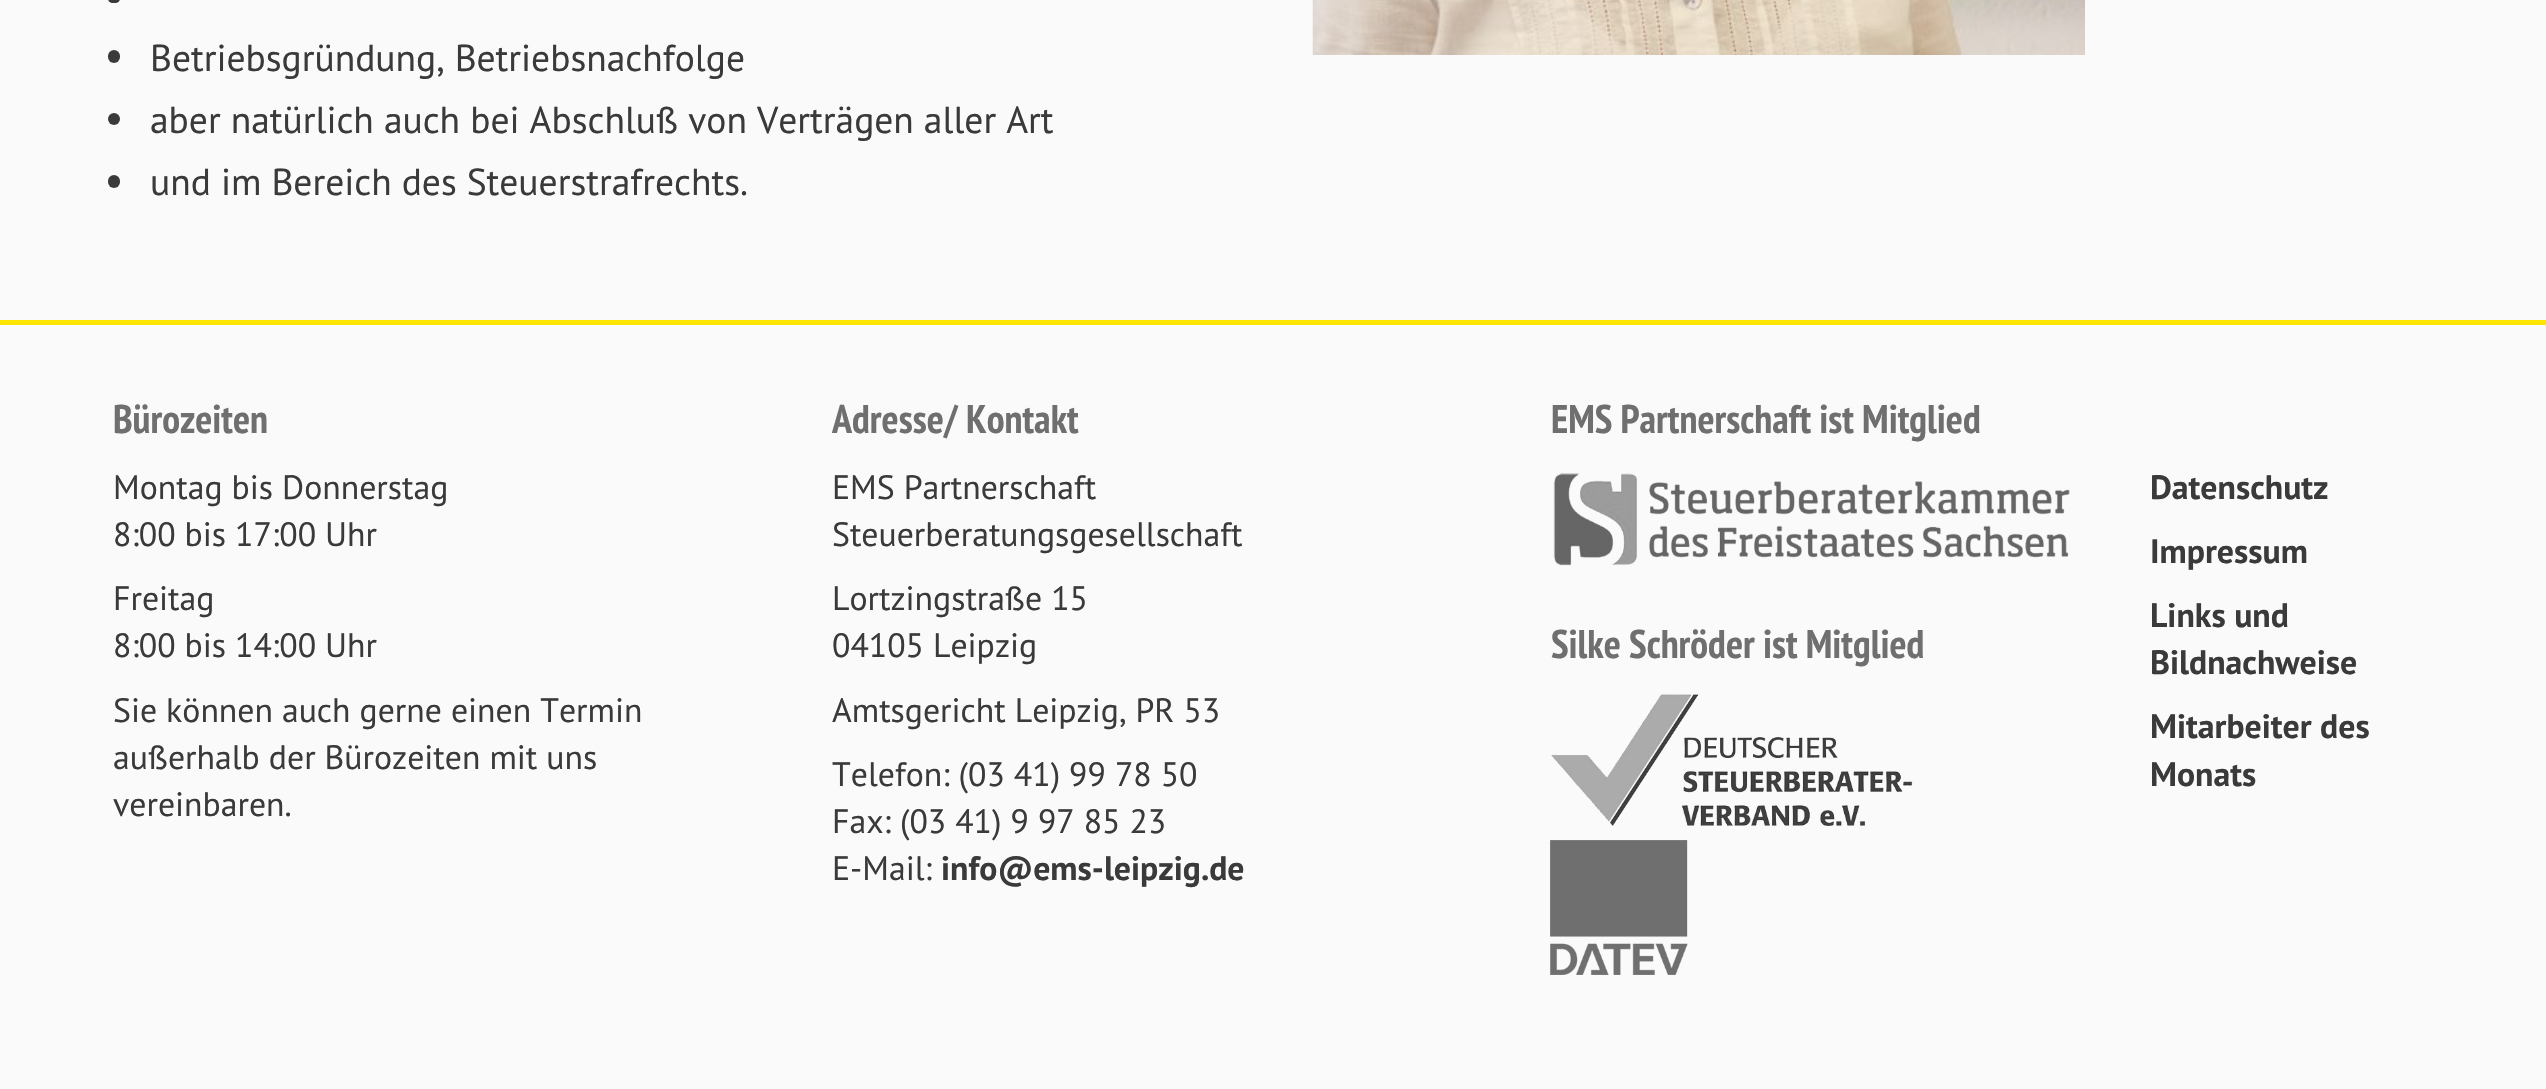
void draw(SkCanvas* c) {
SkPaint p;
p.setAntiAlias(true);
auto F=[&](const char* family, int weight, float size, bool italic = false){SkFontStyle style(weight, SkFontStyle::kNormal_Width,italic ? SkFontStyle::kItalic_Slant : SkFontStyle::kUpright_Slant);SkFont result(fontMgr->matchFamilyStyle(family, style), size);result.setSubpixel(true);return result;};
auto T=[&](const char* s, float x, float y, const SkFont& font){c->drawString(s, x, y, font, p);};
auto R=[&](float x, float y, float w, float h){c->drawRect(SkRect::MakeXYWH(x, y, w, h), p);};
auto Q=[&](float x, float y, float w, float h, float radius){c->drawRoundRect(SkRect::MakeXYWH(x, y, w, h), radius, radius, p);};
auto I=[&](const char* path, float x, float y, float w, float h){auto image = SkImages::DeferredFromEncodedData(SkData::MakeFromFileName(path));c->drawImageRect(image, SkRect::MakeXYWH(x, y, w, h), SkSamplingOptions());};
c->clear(0xfffafafa);
I("1.png",1312,0,773,55);
p.setColor(0xff3b3a3a);
Q(108,-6,12,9,6);
Q(108,50,12,13,6);
auto f1 = F("PT Sans",400,37.5);
T("Betriebsgründung, Betriebsnachfolge",150,71,f1);
c->drawCircle(114,119,6,p);
T("aber natürlich auch bei Abschluß von Verträgen aller Art",150,133,f1);
Q(108,175,12,13,6);
T("und im Bereich des Steuerstrafrechts.",150,195,f1);
p.setColor(0xffffe500);
R(0,320,2546,5);
auto f2 = F("PT Sans Narrow",700,40);
p.setColor(0xff706f6f);
T("Bürozeiten",113,433,f2);
auto f3 = F("PT Sans",400,33.75);
p.setColor(0xff3b3a3a);
T("Montag bis Donnerstag",113,499,f3);
T("8:00 bis 17:00 Uhr",113,546,f3);
T("Freitag",113,610,f3);
T("8:00 bis 14:00 Uhr",113,657,f3);
T("Sie können auch gerne einen Termin",113,722,f3);
T("außerhalb der Bürozeiten mit uns",113,769,f3);
T("vereinbaren.",113,816,f3);
p.setColor(0xff706f6f);
T("Adresse/ Kontakt",832,433,f2);
p.setColor(0xff3b3a3a);
T("EMS Partnerschaft",832,499,f3);
T("Steuerberatungsgesellschaft",832,546,f3);
T("Lortzingstraße 15",832,610,f3);
T("04105 Leipzig",832,657,f3);
T("Amtsgericht Leipzig, PR 53",832,722,f3);
T("Telefon: (03 41) 99 78 50",832,786,f3);
T("Fax: (03 41) 9 97 85 23",832,833,f3);
T("E-Mail:",832,880,f3);
auto f4 = F("PT Sans",700,33.75);
T("info@ems-leipzig.de",941,880,f4);
p.setColor(0xff706f6f);
T("EMS Partnerschaft ist Mitglied",1551,433,f2);
I("2.png",1553,473,517,93);
T("Silke Schröder ist Mitglied",1551,658,f2);
I("3.png",1551,694,362,132);
I("4.png",1550,840,138,135);
p.setColor(0xff3b3a3a);
T("Datenschutz",2150,499,f4);
T("Impressum",2150,563,f4);
T("Links und",2150,627,f4);
T("Bildnachweise",2150,674,f4);
T("Mitarbeiter des",2150,738,f4);
T("Monats",2150,786,f4);
}
